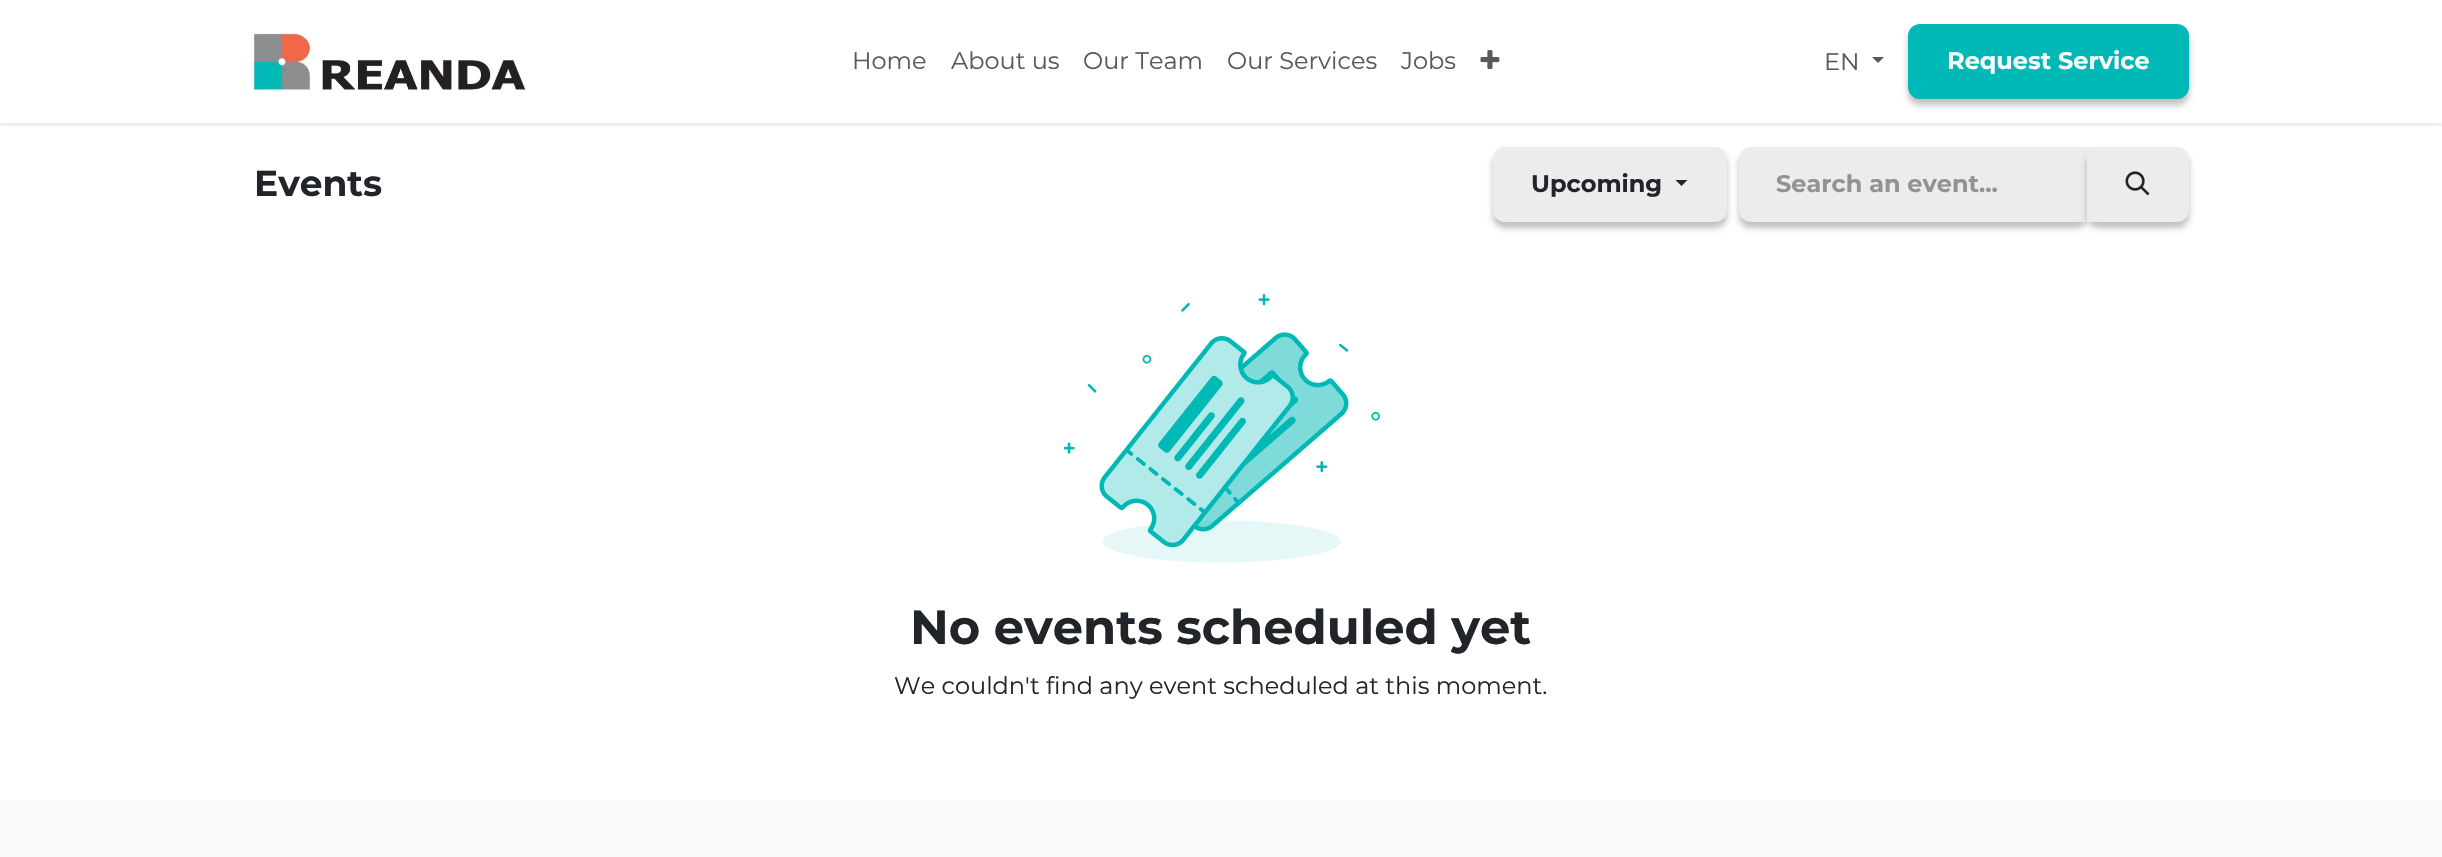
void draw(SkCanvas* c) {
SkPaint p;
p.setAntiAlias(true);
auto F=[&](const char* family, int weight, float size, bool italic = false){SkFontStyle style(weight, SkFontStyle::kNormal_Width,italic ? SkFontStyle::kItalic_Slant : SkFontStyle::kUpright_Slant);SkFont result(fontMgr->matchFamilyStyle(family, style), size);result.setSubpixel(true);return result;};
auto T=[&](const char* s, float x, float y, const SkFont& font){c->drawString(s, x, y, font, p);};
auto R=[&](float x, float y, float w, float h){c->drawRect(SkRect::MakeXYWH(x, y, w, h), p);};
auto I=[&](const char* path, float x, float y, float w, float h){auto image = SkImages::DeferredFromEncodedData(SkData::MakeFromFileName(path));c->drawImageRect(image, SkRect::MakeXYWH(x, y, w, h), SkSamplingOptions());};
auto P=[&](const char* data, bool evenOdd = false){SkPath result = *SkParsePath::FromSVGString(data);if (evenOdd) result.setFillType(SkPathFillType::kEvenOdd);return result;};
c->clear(0xffffffff);
c->save();
c->clipRect(SkRect::MakeXYWH(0,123,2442,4));
p.setColor(0x1a000000);
p.setMaskFilter(SkMaskFilter::MakeBlur(kNormal_SkBlurStyle, 2));
c->drawRect(SkRect::MakeXYWH(0,2,2442,123),p);
p.setMaskFilter(nullptr);
c->restore();
I("1.png",253,31,273,61);
auto f1 = F("Montserrat",400,24);
p.setColor(0xff595959);
T("Home",852,69,f1);
T("About us",951,69,f1);
T("Our Team",1083,69,f1);
T("Our Services",1227,69,f1);
T("Jobs",1401,69,f1);
I("2.png",1480,50,20,19);
T("EN",1824,70,f1);
c->drawPath(P("M1872 57h12l-6 6z"),p);
p.setColor(0x40000000);
p.setMaskFilter(SkMaskFilter::MakeBlur(kNormal_SkBlurStyle, 3));
c->drawRoundRect(SkRect::MakeXYWH(1908,30,281,75),12,12,p);
p.setMaskFilter(nullptr);
p.setColor(0xff00b8b5);
c->drawRoundRect(SkRect::MakeXYWH(1909,25,279,73),11,11,p);
p.setStroke(true);
p.setStrokeWidth(2);
c->drawRoundRect(SkRect::MakeXYWH(1909,25,279,73),11,11,p);
auto f2 = F("Montserrat",700,24);
p.setStroke(false);
p.setColor(0xffffffff);
T("Request Service",1947,69,f2);
auto f3 = F("Montserrat",700,36);
p.setColor(0xff212529);
T("Events",254,196,f3);
p.setColor(0x40000000);
p.setMaskFilter(SkMaskFilter::MakeBlur(kNormal_SkBlurStyle, 3));
c->drawRoundRect(SkRect::MakeXYWH(1493,153,234,75),12,12,p);
p.setMaskFilter(nullptr);
p.setColor(0xffececec);
c->drawRoundRect(SkRect::MakeXYWH(1494,148,232,73),11,11,p);
p.setStroke(true);
c->drawRoundRect(SkRect::MakeXYWH(1494,148,232,73),11,11,p);
p.setStroke(false);
p.setColor(0xff212529);
T("Upcoming",1531,192,f2);
c->drawPath(P("M1675.5 180h12l-6 6z"),p);
p.setColor(0x40000000);
p.setMaskFilter(SkMaskFilter::MakeBlur(kNormal_SkBlurStyle, 3));
c->drawRoundRect(SkRect::MakeXYWH(1739,153,349,75),12,12,p);
p.setMaskFilter(nullptr);
p.setColor(0xffececec);
c->drawPath(P("M1751 147h337v75h-337c-6.5 0-12-5.5-12-12v-51c0-6.5 5.5-12 12-12z"),p);
p.setColor(0xff909294);
T("Search an event...",1776,192,f2);
p.setColor(0x40000000);
p.setMaskFilter(SkMaskFilter::MakeBlur(kNormal_SkBlurStyle, 3));
c->drawRoundRect(SkRect::MakeXYWH(2087,153,102,75),12,12,p);
p.setMaskFilter(nullptr);
p.setColor(0xffececec);
c->drawPath(P("M2088 148h89c6 0 11 5 11 11v51c0 6-5 11-11 11h-89z"),p);
p.setStroke(true);
c->drawPath(P("M2088 148h89c6 0 11 5 11 11v51c0 6-5 11-11 11h-89z"),p);
I("3.png",2125,171,25,25);
I("4.png",1064,294,316,269);
auto f4 = F("Montserrat",700,48);
p.setStroke(false);
p.setColor(0xff212529);
T("No events scheduled yet",910,644,f4);
T("We couldn't find any event scheduled at this moment.",894,694,f1);
p.setColor(0xfff8f9fa);
R(0,800,2442,57);
}
